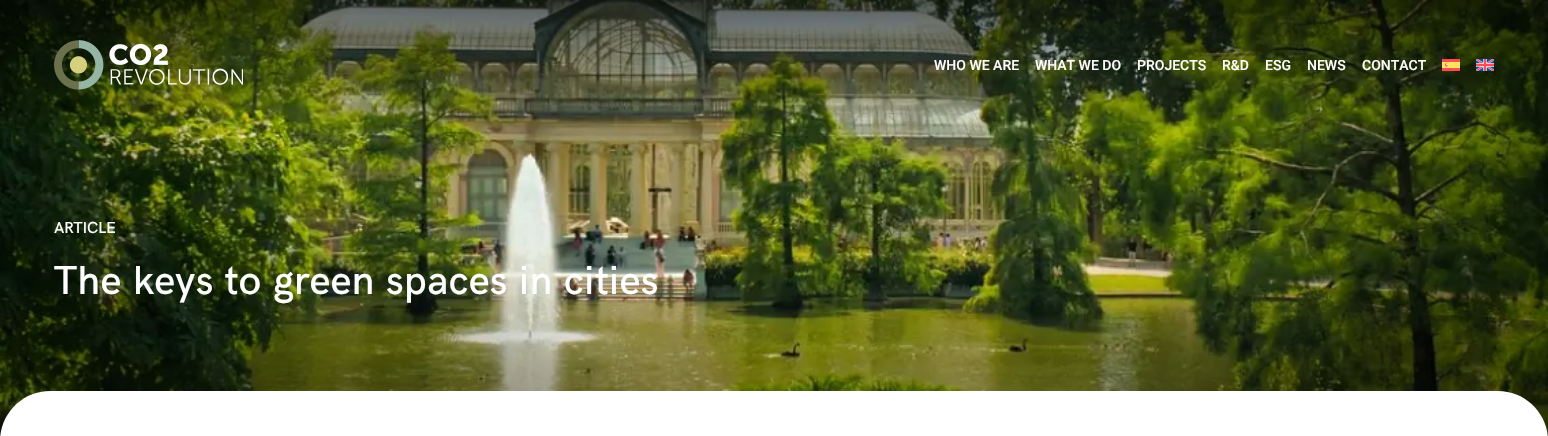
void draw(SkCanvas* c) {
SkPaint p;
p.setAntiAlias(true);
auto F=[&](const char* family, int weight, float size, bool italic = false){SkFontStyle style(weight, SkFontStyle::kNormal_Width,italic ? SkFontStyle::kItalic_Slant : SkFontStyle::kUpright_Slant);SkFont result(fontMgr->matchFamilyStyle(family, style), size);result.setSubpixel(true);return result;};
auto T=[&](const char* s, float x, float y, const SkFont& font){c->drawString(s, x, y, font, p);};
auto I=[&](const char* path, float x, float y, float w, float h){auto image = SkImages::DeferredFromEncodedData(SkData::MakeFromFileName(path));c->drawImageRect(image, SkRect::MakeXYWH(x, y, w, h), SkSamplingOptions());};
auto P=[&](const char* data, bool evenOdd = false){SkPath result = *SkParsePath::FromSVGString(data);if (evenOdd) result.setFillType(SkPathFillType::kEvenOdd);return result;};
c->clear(0xffffffff);
I("4.png",0,0,1548,436);
I("1.png",54,40,189,50);
auto f1 = F("Roboto",500,14);
p.setColor(0xffffffff);
T("WHO WE ARE",934,70,f1);
T("WHAT WE DO",1035,70,f1);
T("PROJECTS",1137,70,f1);
T("R&D",1222,70,f1);
T("ESG",1265,70,f1);
T("NEWS",1307,70,f1);
T("CONTACT",1362,70,f1);
I("2.png",1442,59,18,12);
I("3.png",1476,59,18,12);
auto f2 = F("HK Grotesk",500,16);
T("ARTICLE",54,233,f2);
auto f3 = F("HK Grotesk",500,40.75);
T("The keys to green spaces in cities",54,294,f3);
c->drawPath(P("M50 391h1448c27.5 0 50 22.5 50 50v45h-1548v-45c0-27.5 22.5-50 50-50z"),p);
}
